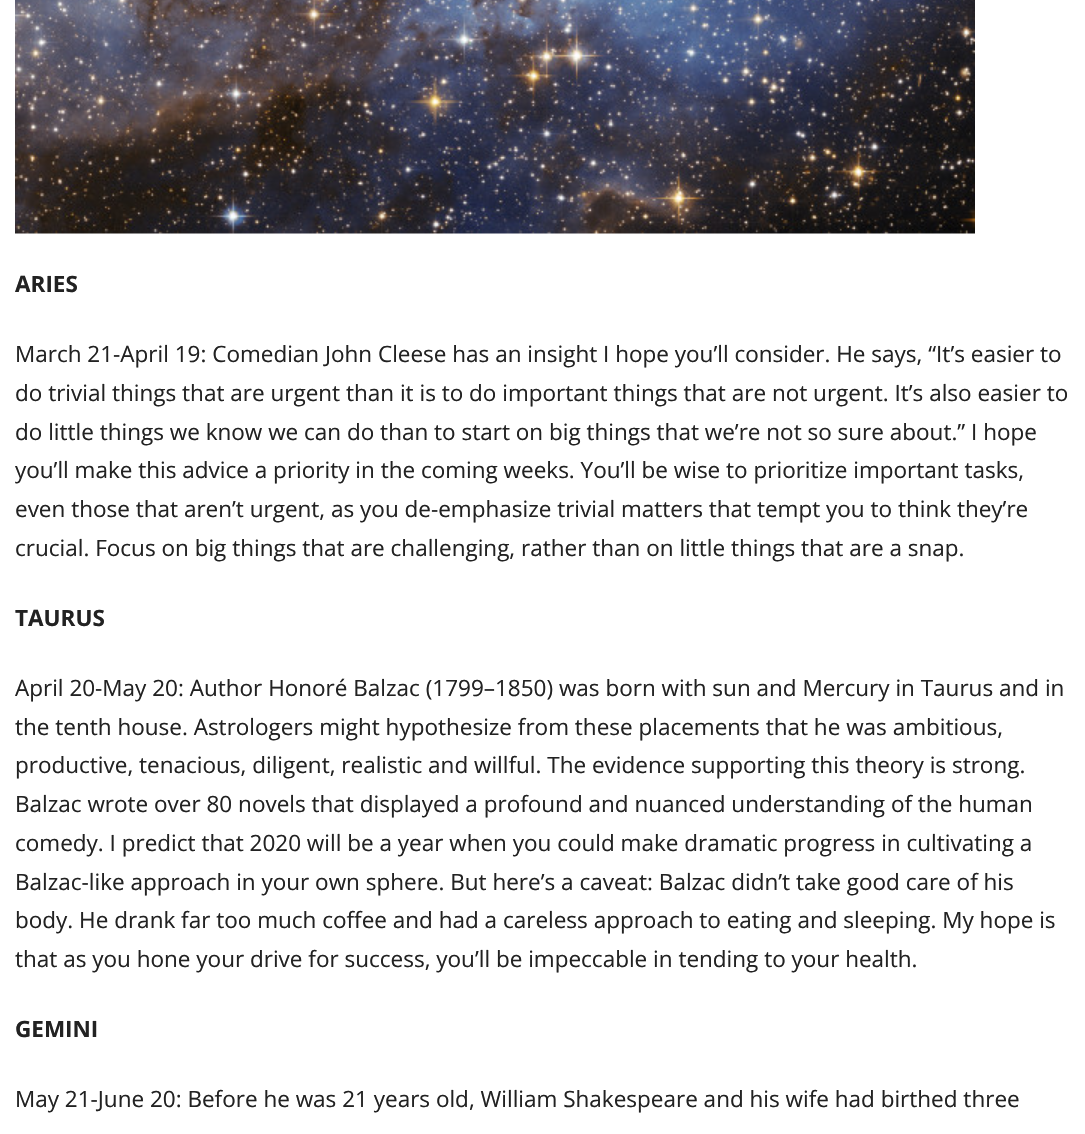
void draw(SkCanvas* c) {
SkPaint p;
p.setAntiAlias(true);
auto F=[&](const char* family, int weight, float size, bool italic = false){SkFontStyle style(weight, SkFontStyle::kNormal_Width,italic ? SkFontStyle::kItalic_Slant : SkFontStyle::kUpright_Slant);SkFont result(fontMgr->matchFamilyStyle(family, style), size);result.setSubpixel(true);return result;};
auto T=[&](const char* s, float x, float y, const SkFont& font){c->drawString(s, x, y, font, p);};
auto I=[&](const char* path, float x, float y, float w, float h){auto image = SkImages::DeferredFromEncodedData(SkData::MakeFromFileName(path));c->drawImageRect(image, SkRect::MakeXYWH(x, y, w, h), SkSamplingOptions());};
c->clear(0xffffffff);
I("1.png",15,0,960,234);
auto f1 = F("Open Sans",700,22.5);
p.setColor(0xff222222);
T("ARIES",15,292,f1);
auto f2 = F("Open Sans",400,22.5);
T("March 21-April 19: Comedian John Cleese has an insight I hope you’ll consider. He says, “It’s easier to",15,362,f2);
T("do trivial things that are urgent than it is to do important things that are not urgent. It’s also easier to",15,401,f2);
T("do little things we know we can do than to start on big things that we’re not so sure about.” I hope",15,440,f2);
T("you’ll make this advice a priority in the coming weeks. You’ll be wise to prioritize important tasks,",15,478,f2);
T("even those that aren’t urgent, as you de-emphasize trivial matters that tempt you to think they’re",15,517,f2);
T("crucial. Focus on big things that are challenging, rather than on little things that are a snap.",15,556,f2);
T("TAURUS",15,626,f1);
T("April 20-May 20: Author Honoré Balzac (1799–1850) was born with sun and Mercury in Taurus and in",15,696,f2);
T("the tenth house. Astrologers might hypothesize from these placements that he was ambitious,",15,735,f2);
T("productive, tenacious, diligent, realistic and willful. The evidence supporting this theory is strong.",15,773,f2);
T("Balzac wrote over 80 novels that displayed a profound and nuanced understanding of the human",15,812,f2);
T("comedy. I predict that 2020 will be a year when you could make dramatic progress in cultivating a",15,851,f2);
T("Balzac-like approach in your own sphere. But here’s a caveat: Balzac didn’t take good care of his",15,890,f2);
T("body. He drank far too much coffee and had a careless approach to eating and sleeping. My hope is",15,928,f2);
T("that as you hone your drive for success, you’ll be impeccable in tending to your health.",15,967,f2);
T("GEMINI",15,1037,f1);
T("May 21-June 20: Before he was 21 years old, William Shakespeare and his wife had birthed three",15,1107,f2);
}
